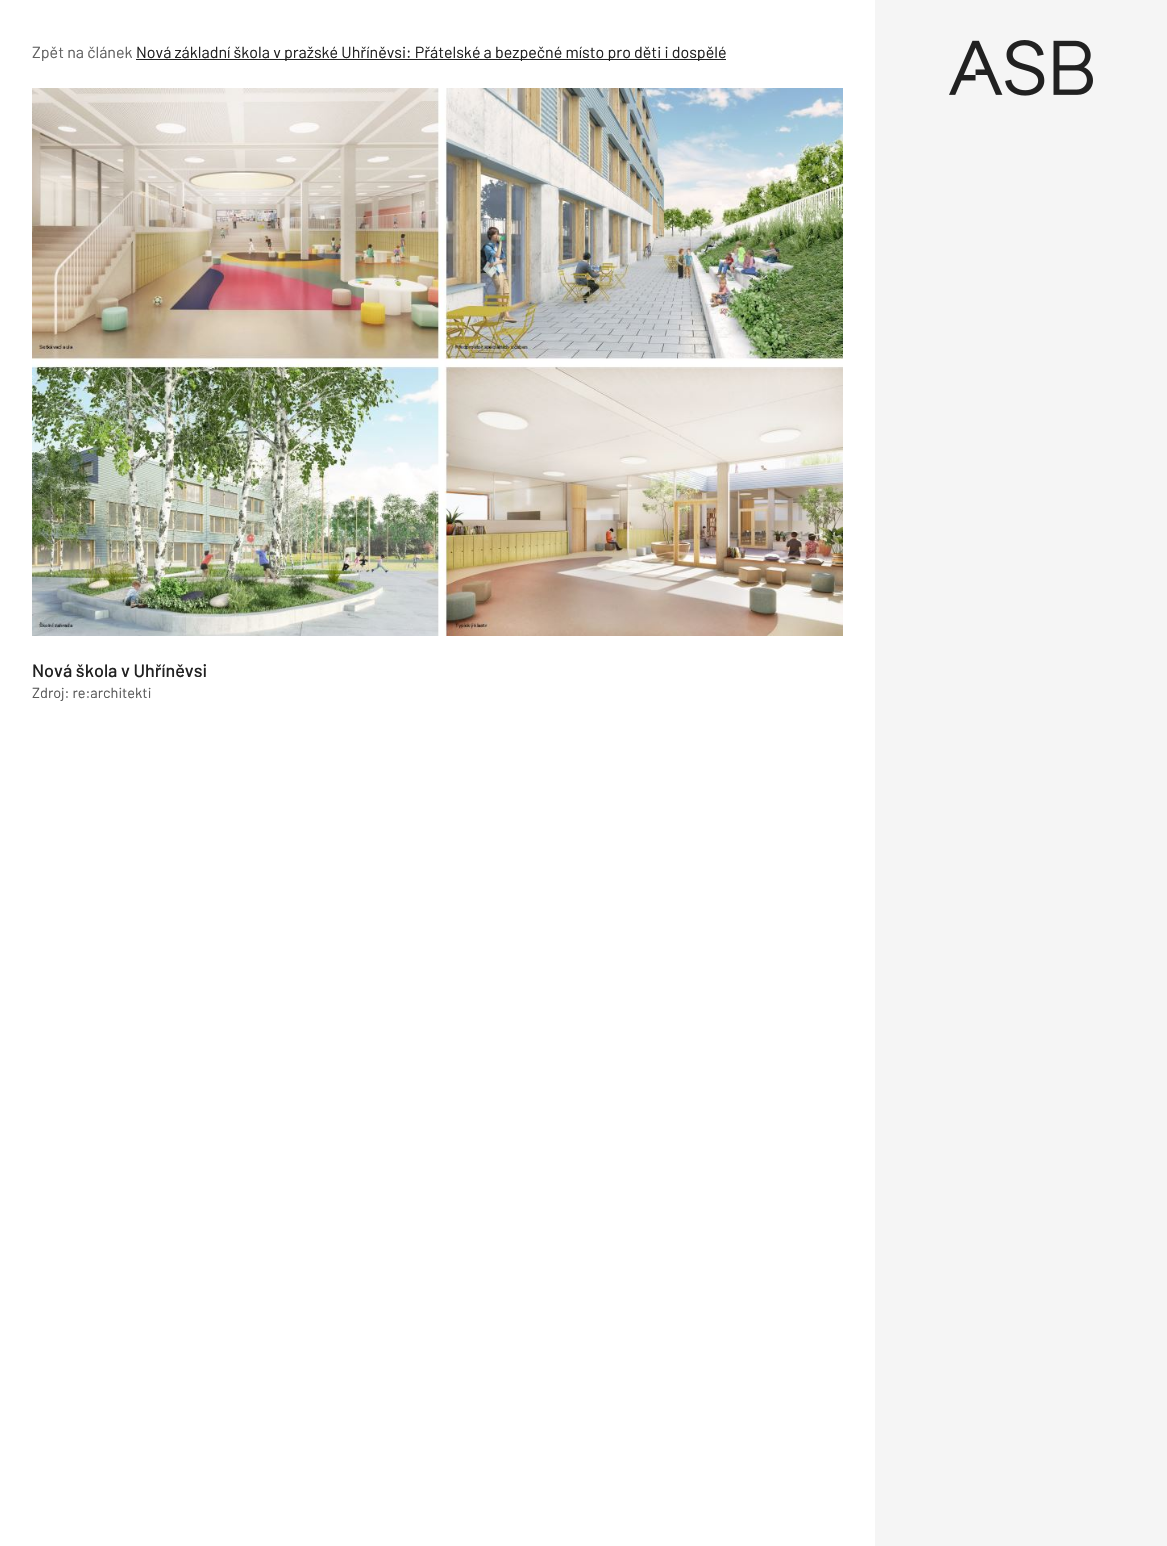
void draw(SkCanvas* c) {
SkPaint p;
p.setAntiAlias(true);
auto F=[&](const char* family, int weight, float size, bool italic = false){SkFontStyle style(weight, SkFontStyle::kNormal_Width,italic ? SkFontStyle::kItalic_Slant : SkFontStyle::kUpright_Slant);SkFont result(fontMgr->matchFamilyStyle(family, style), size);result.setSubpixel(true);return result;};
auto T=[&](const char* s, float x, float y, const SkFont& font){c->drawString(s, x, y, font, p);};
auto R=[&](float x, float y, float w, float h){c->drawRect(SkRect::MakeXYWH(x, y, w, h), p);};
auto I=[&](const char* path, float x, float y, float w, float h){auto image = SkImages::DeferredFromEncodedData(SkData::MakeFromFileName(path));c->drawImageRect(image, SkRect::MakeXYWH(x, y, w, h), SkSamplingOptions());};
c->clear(0xffffffff);
auto f1 = F("Barlow",400,16);
p.setColor(0xff616161);
T("Zpět na článek",32,58,f1);
p.setColor(0xff212121);
R(136,59,590,1);
T("Nová základní škola v pražské Uhříněvsi: Přátelské a bezpečné místo pro děti i dospělé",136,58,f1);
I("1.png",32,88,811,548);
auto f2 = F("Barlow",500,18);
T("Nová škola v Uhříněvsi",32,677,f2);
auto f3 = F("Barlow",400,14.5);
p.setColor(0xff595959);
T("Zdroj: re:architekti",32,698,f3);
p.setColor(0xfff5f5f5);
R(875,0,292,1546);
I("2.png",949,40,144,56);
}
